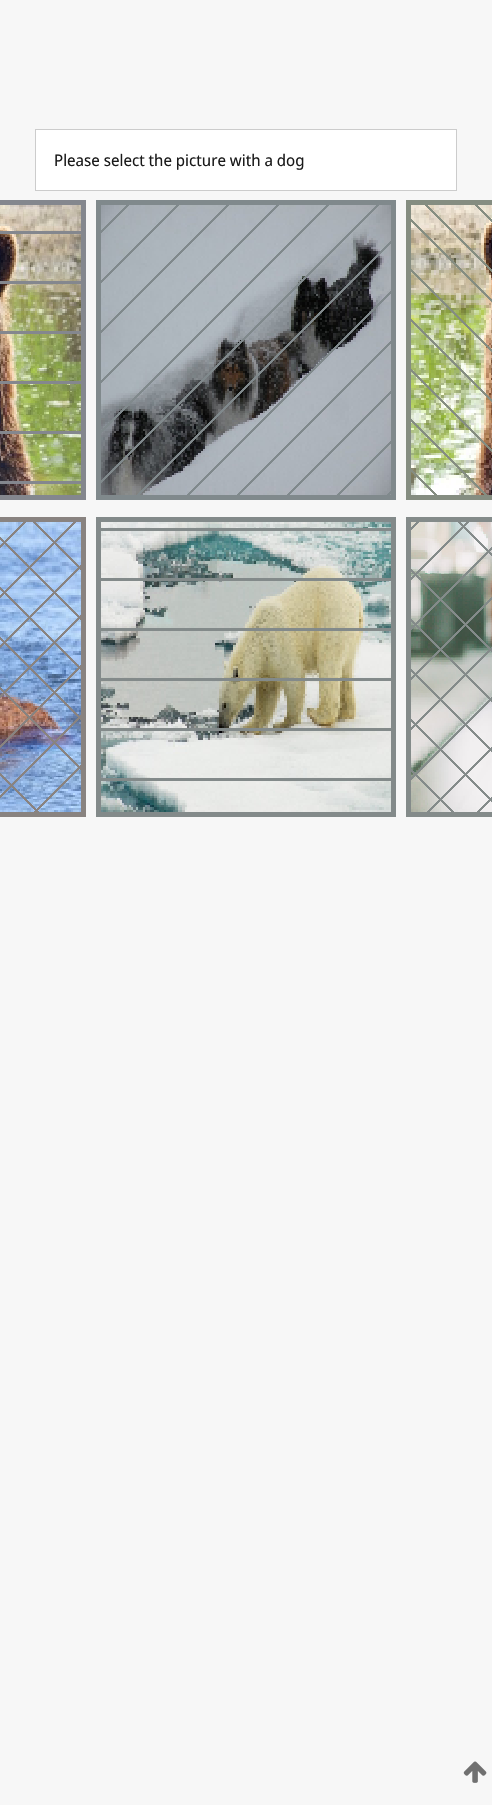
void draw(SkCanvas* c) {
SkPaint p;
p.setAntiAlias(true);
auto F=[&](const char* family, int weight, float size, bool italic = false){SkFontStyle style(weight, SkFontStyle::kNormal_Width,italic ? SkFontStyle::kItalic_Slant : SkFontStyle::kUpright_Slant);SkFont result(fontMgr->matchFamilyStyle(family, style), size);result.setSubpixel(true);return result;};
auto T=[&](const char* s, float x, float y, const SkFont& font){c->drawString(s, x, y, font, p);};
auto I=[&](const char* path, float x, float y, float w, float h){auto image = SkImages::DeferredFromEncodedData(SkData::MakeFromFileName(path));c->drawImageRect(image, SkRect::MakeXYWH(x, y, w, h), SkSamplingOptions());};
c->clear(0xfff7f7f7);
p.setColor(0xffffffff);
c->drawRect(SkRect::MakeXYWH(35.5,129.5,421,61),p);
p.setStroke(true);
p.setStrokeWidth(1);
p.setColor(0xffcccccc);
c->drawRect(SkRect::MakeXYWH(35.5,129.5,421,61),p);
auto f1 = F("Noto Sans Display",400,16);
p.setStroke(false);
p.setColor(0xff1a1a1a);
T("Please select the picture with a dog",54,166,f1);
I("1.png",0,200,86,300);
I("2.png",96,200,300,300);
I("3.png",406,200,86,300);
I("4.png",0,517,86,300);
I("5.png",96,517,300,300);
I("6.png",406,517,86,300);
I("7.png",463,1761,24,22);
}
